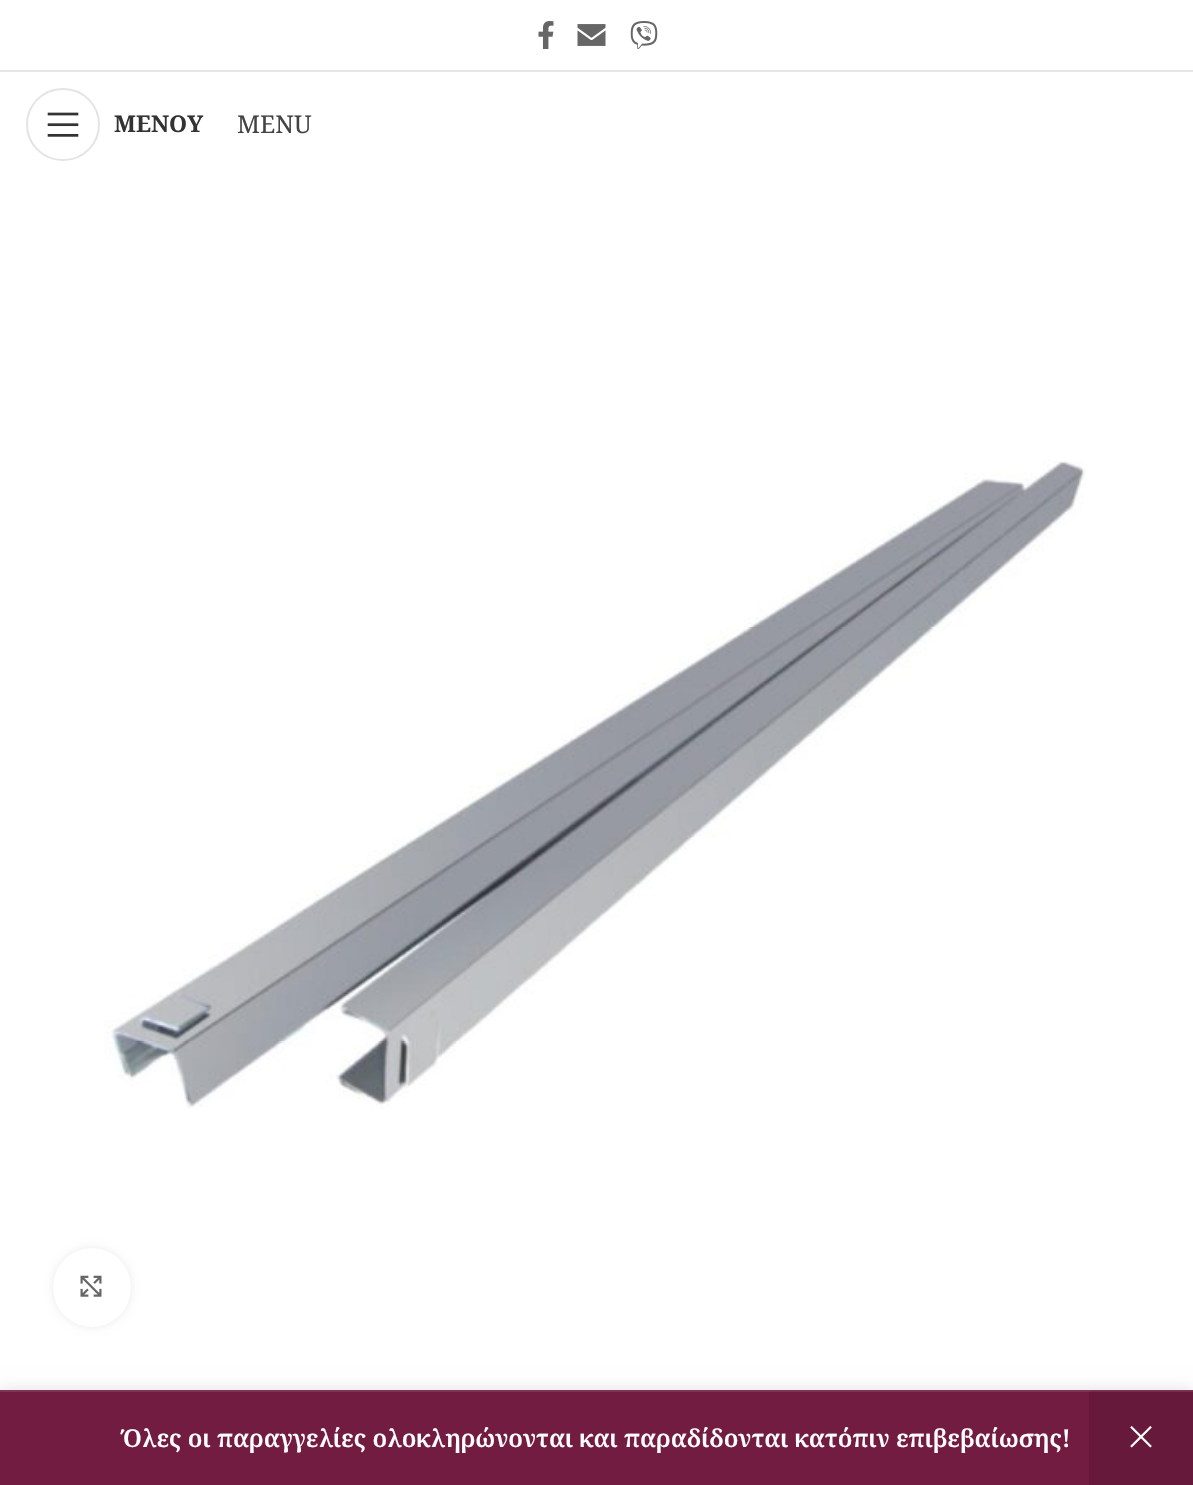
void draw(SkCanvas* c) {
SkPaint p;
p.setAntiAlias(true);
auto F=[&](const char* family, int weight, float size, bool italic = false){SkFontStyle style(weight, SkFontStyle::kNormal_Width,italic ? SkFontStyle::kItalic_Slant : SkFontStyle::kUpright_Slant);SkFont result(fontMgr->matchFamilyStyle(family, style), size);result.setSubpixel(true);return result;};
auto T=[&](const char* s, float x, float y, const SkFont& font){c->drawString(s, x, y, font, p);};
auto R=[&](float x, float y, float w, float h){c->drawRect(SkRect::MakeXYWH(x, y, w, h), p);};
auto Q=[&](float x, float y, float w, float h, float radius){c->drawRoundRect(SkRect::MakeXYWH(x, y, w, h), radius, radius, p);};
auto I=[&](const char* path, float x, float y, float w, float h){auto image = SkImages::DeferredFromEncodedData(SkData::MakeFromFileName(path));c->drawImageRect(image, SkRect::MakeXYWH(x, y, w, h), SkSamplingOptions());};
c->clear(0xffffffff);
p.setColor(0xffe6e6e4);
R(0,70,1193,2);
I("1.png",538,21,16,28);
I("2.png",577,24,29,22);
I("3.png",630,21,28,28);
p.setStroke(true);
p.setStrokeWidth(2);
p.setColor(0xffe4e4e4);
c->drawRoundRect(SkRect::MakeXYWH(27,89,72,71),35.5,35.5,p);
I("4.png",47,112,32,25);
auto f1 = F("Noto Serif",700,23);
p.setStroke(false);
p.setColor(0xff333333);
T("ΜΕΝΟΥ",114,132,f1);
auto f2 = F("Noto Serif",400,24.5);
p.setColor(0xff444444);
T("MENU",237,133,f2);
I("5.png",104,459,982,650);
p.setColor(0x14000000);
p.setMaskFilter(SkMaskFilter::MakeBlur(kNormal_SkBlurStyle, 4.5));
c->drawRoundRect(SkRect::MakeXYWH(53,1248,78,79),39,39,p);
p.setMaskFilter(nullptr);
p.setColor(0xffffffff);
Q(53,1248,78,79,39);
I("6.png",80,1275,22,22);
p.setColor(0x1f000000);
p.setMaskFilter(SkMaskFilter::MakeBlur(kNormal_SkBlurStyle, 8));
c->drawRect(SkRect::MakeXYWH(0,1390,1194,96),p);
p.setMaskFilter(nullptr);
p.setColor(0xff721c41);
R(0,1392,1089,93);
p.setColor(0xff67193b);
R(1089,1392,104,93);
p.setColor(0xff803354);
R(0,1390,1193,2);
p.setColor(0xff732e4c);
R(1089,1391,104,1);
auto f3 = F("Noto Serif",600,24.5);
p.setColor(0xffffffff);
T("Όλες οι παραγγελίες ολοκληρώνονται και παραδίδονται κατόπιν επιβεβαίωσης!",123,1447,f3);
I("7.png",1130,1426,22,22);
}
